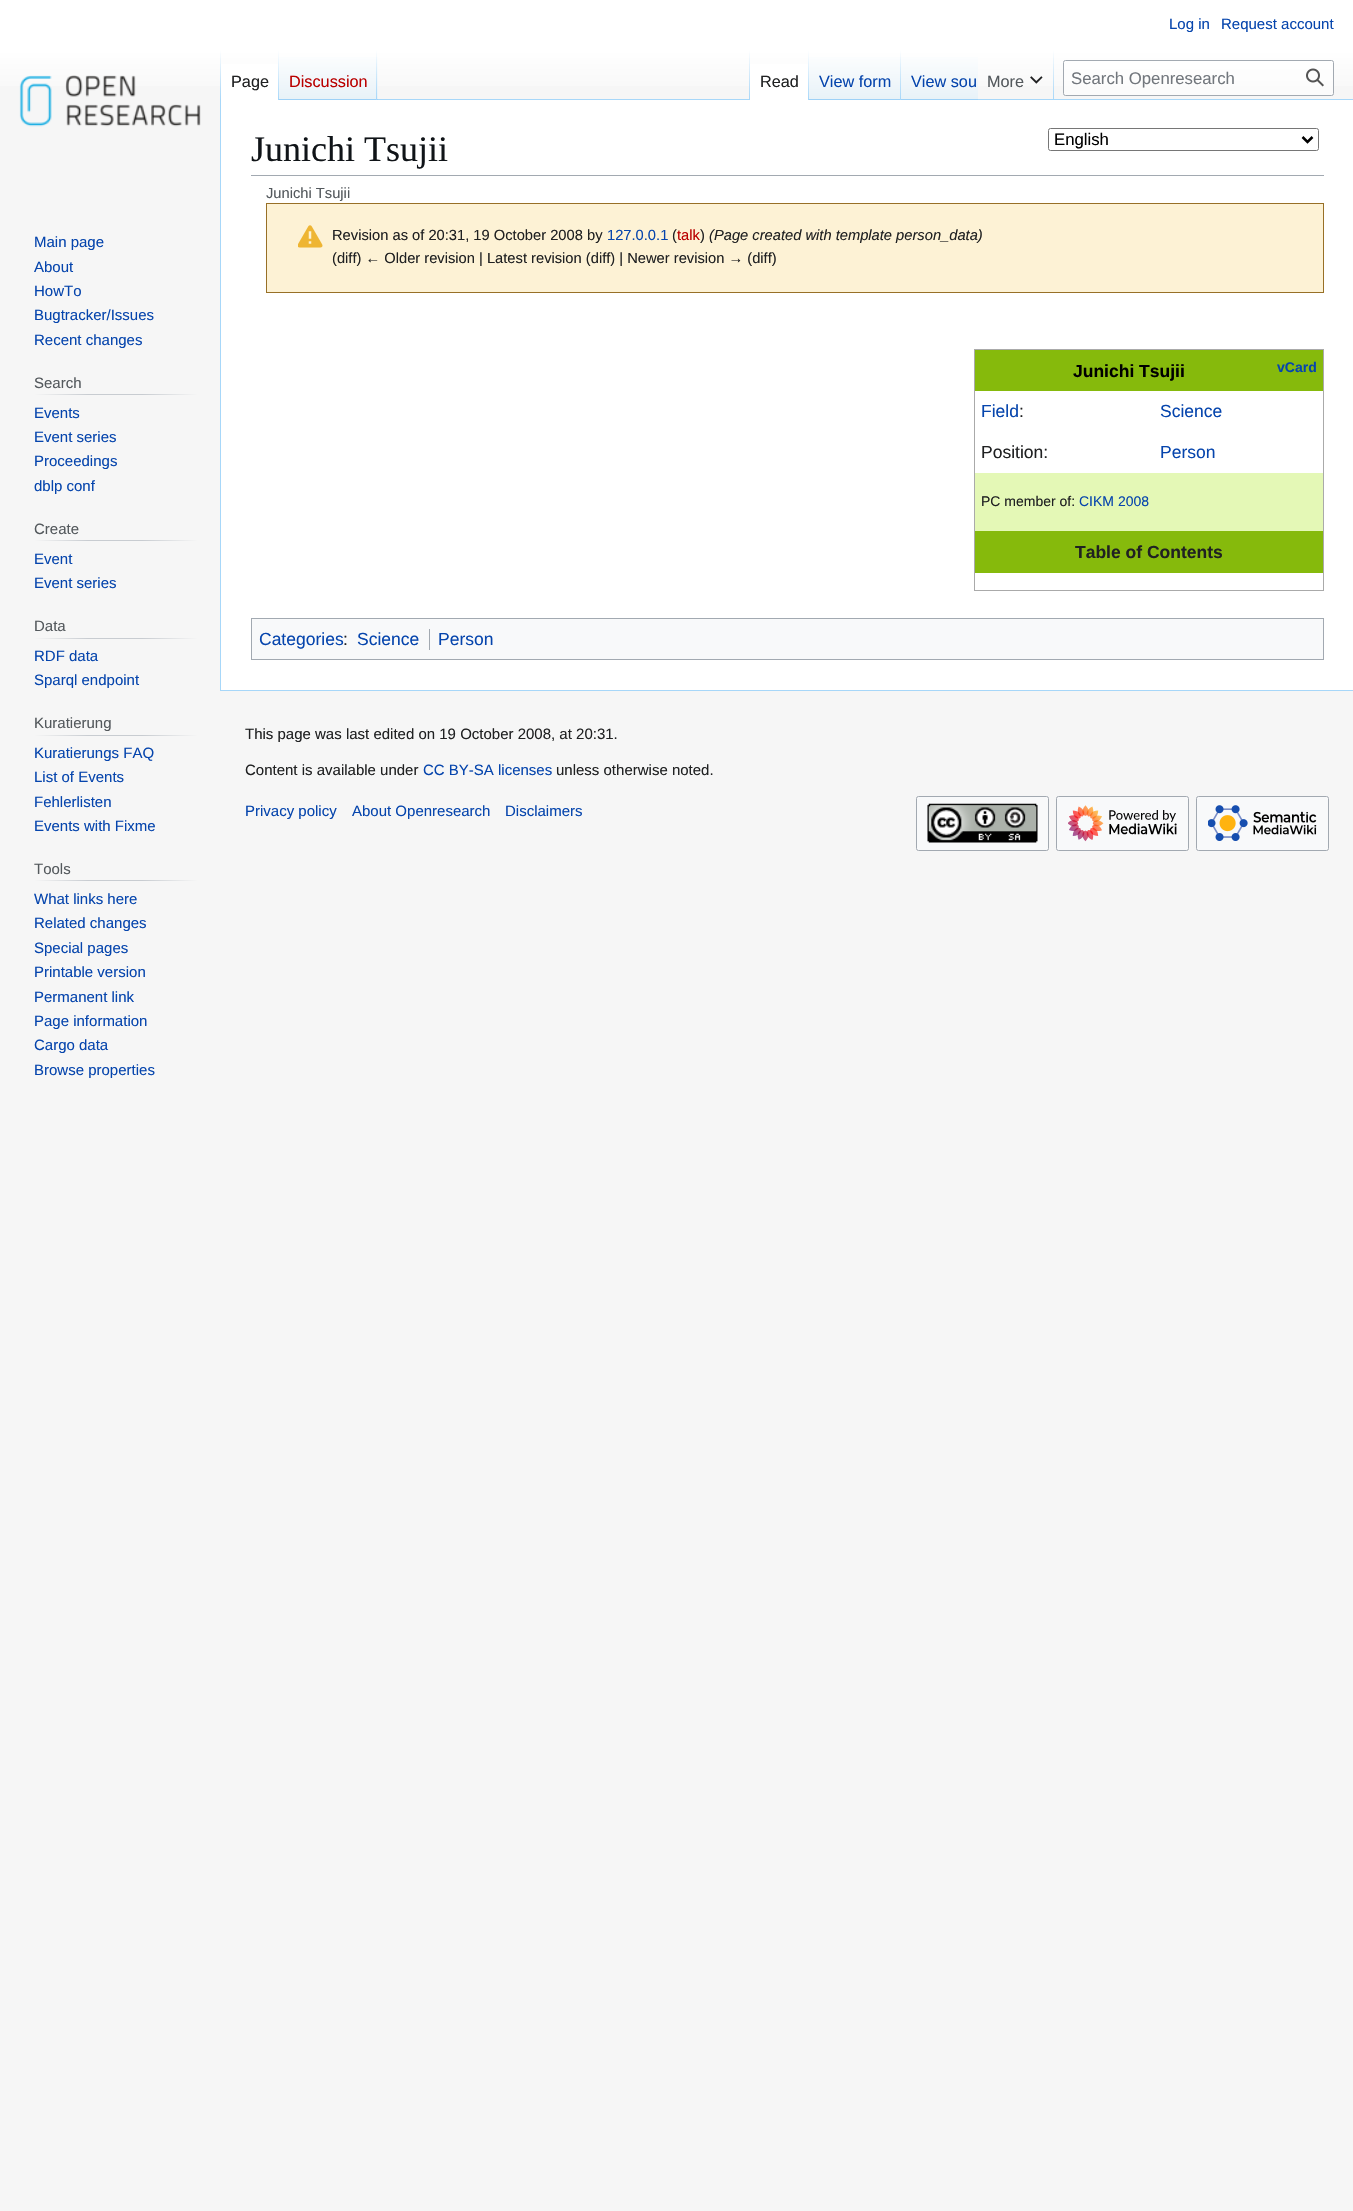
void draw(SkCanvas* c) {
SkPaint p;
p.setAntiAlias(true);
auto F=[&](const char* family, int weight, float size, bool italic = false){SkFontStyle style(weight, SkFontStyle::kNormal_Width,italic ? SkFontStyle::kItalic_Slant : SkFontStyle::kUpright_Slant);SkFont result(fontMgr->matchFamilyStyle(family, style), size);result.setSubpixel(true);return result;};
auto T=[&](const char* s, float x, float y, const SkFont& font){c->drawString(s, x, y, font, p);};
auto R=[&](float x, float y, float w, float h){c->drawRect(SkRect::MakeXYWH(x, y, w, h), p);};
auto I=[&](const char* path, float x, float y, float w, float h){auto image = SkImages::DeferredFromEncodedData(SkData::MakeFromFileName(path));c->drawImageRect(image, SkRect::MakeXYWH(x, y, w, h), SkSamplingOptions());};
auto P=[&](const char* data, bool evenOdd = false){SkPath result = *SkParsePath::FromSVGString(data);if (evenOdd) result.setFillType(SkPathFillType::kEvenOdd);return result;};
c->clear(0xfff6f6f6);
{
const SkColor colors[] = {0xffffffff,0xfff6f6f6};
const float stops[] = {.5,1};
const SkPoint ends[] = {{677,0}, {677,100}};
p.setShader(SkGradientShader::MakeLinear(ends, colors, stops, 2, SkTileMode::kClamp));
p.setAlpha(255);
}
R(0,0,1353,86);
auto f1 = F("Liberation Sans",400,15);
p.setShader(nullptr);
p.setColor(0xff0645ad);
T("Log in",1169,29,f1);
T("Request account",1221,29,f1);
p.setColor(0xffa7d7f9);
R(220,690,1133,1);
R(220,99,1,592);
{
const SkColor colors[] = {0x00a7d7f9,0xffa7d7f9};
const float stops[] = {0,1};
const SkPoint ends[] = {{221,50}, {221,100}};
p.setShader(SkGradientShader::MakeLinear(ends, colors, stops, 2, SkTileMode::kClamp));
p.setAlpha(255);
}
R(220,50,1,50);
p.setShader(nullptr);
p.setColor(0xffffffff);
R(221,64,57,36);
{
const SkColor colors[] = {0xffffffff,0xffa7d7f9};
const float stops[] = {0,1};
const SkPoint ends[] = {{278,50}, {278,100}};
p.setShader(SkGradientShader::MakeLinear(ends, colors, stops, 2, SkTileMode::kClamp));
p.setAlpha(255);
}
R(278,50,1,50);
auto f2 = F("Liberation Sans",400,16.25);
p.setShader(nullptr);
p.setColor(0xff202122);
T("Page",231,87,f2);
{
const SkColor colors[] = {0xff77c1f6,0xffe8f2f8,0xffffffff};
const float stops[] = {0,.03,1};
const SkPoint ends[] = {{328,100}, {328,50}};
p.setShader(SkGradientShader::MakeLinear(ends, colors, stops, 3, SkTileMode::kClamp));
p.setAlpha(255);
}
R(279,57,99,43);
{
const SkColor colors[] = {0x00a7d7f9,0xffa7d7f9};
const float stops[] = {0,1};
const SkPoint ends[] = {{377,50}, {377,100}};
p.setShader(SkGradientShader::MakeLinear(ends, colors, stops, 2, SkTileMode::kClamp));
p.setAlpha(255);
}
R(376,50,1,50);
p.setShader(nullptr);
p.setColor(0xffba0000);
T("Discussion",289,87,f2);
p.setColor(0xffa7d7f9);
R(378,99,975,1);
{
const SkColor colors[] = {0x00a7d7f9,0xffa7d7f9};
const float stops[] = {0,1};
const SkPoint ends[] = {{749,50}, {749,100}};
p.setShader(SkGradientShader::MakeLinear(ends, colors, stops, 2, SkTileMode::kClamp));
p.setAlpha(255);
}
R(749,50,1,50);
p.setShader(nullptr);
p.setColor(0xffffffff);
R(750,64,58,36);
{
const SkColor colors[] = {0xffffffff,0xffa7d7f9};
const float stops[] = {0,1};
const SkPoint ends[] = {{808,50}, {808,100}};
p.setShader(SkGradientShader::MakeLinear(ends, colors, stops, 2, SkTileMode::kClamp));
p.setAlpha(255);
}
R(808,50,1,50);
p.setShader(nullptr);
p.setColor(0xff202122);
T("Read",760,87,f2);
{
const SkColor colors[] = {0xff77c1f6,0xffe8f2f8,0xffffffff};
const float stops[] = {0,.03,1};
const SkPoint ends[] = {{855,100}, {855,50}};
p.setShader(SkGradientShader::MakeLinear(ends, colors, stops, 3, SkTileMode::kClamp));
p.setAlpha(255);
}
R(809,57,92,43);
{
const SkColor colors[] = {0x00a7d7f9,0xffa7d7f9};
const float stops[] = {0,1};
const SkPoint ends[] = {{901,50}, {901,100}};
p.setShader(SkGradientShader::MakeLinear(ends, colors, stops, 2, SkTileMode::kClamp));
p.setAlpha(255);
}
R(900,50,1,50);
p.setShader(nullptr);
p.setColor(0xff0645ad);
T("View form",819,87,f2);
{
const SkColor colors[] = {0xff77c1f6,0xffe8f2f8,0xffffffff};
const float stops[] = {0,.03,1};
const SkPoint ends[] = {{939,100}, {939,50}};
p.setShader(SkGradientShader::MakeLinear(ends, colors, stops, 3, SkTileMode::kClamp));
p.setAlpha(255);
}
R(901,57,77,43);
p.setShader(nullptr);
p.setColor(0xff0645ad);
T("View sou",911,87,f2);
{
const SkColor colors[] = {0x00a7d7f9,0xffa7d7f9};
const float stops[] = {0,1};
const SkPoint ends[] = {{1053,50}, {1053,100}};
p.setShader(SkGradientShader::MakeLinear(ends, colors, stops, 2, SkTileMode::kClamp));
p.setAlpha(255);
}
R(1053,50,1,50);
p.setShader(nullptr);
p.setColor(0xff54595d);
T("More",987,87,f2);
I("1.png",1030,76,13,8);
p.setColor(0x80ffffff);
c->drawRoundRect(SkRect::MakeXYWH(1063.5,60.5,270,35),2,2,p);
p.setStroke(true);
p.setStrokeWidth(1);
p.setColor(0xffa2a9b1);
c->drawRoundRect(SkRect::MakeXYWH(1063.5,60.5,270,35),2,2,p);
auto f3 = F("Liberation Sans",400,16.75);
p.setStroke(false);
p.setColor(0xff72777d);
T("Search Openresearch",1071,84,f3);
I("2.png",1306,68,18,19);
I("3.png",19,75,182,52);
p.setColor(0xff0645ad);
T("Main page",34,247,f1);
T("About",34,272,f1);
T("HowTo",34,296,f1);
T("Bugtracker/Issues",34,320,f1);
T("Recent changes",34,345,f1);
{
const SkColor colors[] = {0xfff6f6f6,0xffc8ccd1,0xffc8ccd1,0xfff6f6f6};
const float stops[] = {0,.33,.66,1};
const SkPoint ends[] = {{34,394}, {198,394}};
p.setShader(SkGradientShader::MakeLinear(ends, colors, stops, 4, SkTileMode::kClamp));
p.setAlpha(255);
}
R(34,394,164,1);
p.setShader(nullptr);
p.setColor(0xff54595d);
T("Search",34,388,f1);
p.setColor(0xff0645ad);
T("Events",34,418,f1);
T("Event series",34,442,f1);
T("Proceedings",34,466,f1);
T("dblp conf",34,491,f1);
{
const SkColor colors[] = {0xfff6f6f6,0xffc8ccd1,0xffc8ccd1,0xfff6f6f6};
const float stops[] = {0,.33,.66,1};
const SkPoint ends[] = {{34,541}, {198,541}};
p.setShader(SkGradientShader::MakeLinear(ends, colors, stops, 4, SkTileMode::kClamp));
p.setAlpha(255);
}
R(34,540,164,1);
p.setShader(nullptr);
p.setColor(0xff54595d);
T("Create",34,534,f1);
p.setColor(0xff0645ad);
T("Event",34,564,f1);
T("Event series",34,588,f1);
{
const SkColor colors[] = {0xfff6f6f6,0xffc8ccd1,0xffc8ccd1,0xfff6f6f6};
const float stops[] = {0,.33,.66,1};
const SkPoint ends[] = {{34,638}, {198,638}};
p.setShader(SkGradientShader::MakeLinear(ends, colors, stops, 4, SkTileMode::kClamp));
p.setAlpha(255);
}
R(34,638,164,1);
p.setShader(nullptr);
p.setColor(0xff54595d);
T("Data",34,631,f1);
p.setColor(0xff0645ad);
T("RDF data",34,661,f1);
T("Sparql endpoint",34,685,f1);
{
const SkColor colors[] = {0xfff6f6f6,0xffc8ccd1,0xffc8ccd1,0xfff6f6f6};
const float stops[] = {0,.33,.66,1};
const SkPoint ends[] = {{34,736}, {198,736}};
p.setShader(SkGradientShader::MakeLinear(ends, colors, stops, 4, SkTileMode::kClamp));
p.setAlpha(255);
}
R(34,735,164,1);
p.setShader(nullptr);
p.setColor(0xff54595d);
T("Kuratierung",34,728,f1);
p.setColor(0xff0645ad);
T("Kuratierungs FAQ",34,758,f1);
T("List of Events",34,782,f1);
T("Fehlerlisten",34,807,f1);
T("Events with Fixme",34,831,f1);
{
const SkColor colors[] = {0xfff6f6f6,0xffc8ccd1,0xffc8ccd1,0xfff6f6f6};
const float stops[] = {0,.33,.66,1};
const SkPoint ends[] = {{34,881}, {198,881}};
p.setShader(SkGradientShader::MakeLinear(ends, colors, stops, 4, SkTileMode::kClamp));
p.setAlpha(255);
}
R(34,880,164,1);
p.setShader(nullptr);
p.setColor(0xff54595d);
T("Tools",34,874,f1);
p.setColor(0xff0645ad);
T("What links here",34,904,f1);
T("Related changes",34,928,f1);
T("Special pages",34,953,f1);
T("Printable version",34,977,f1);
T("Permanent link",34,1002,f1);
T("Page information",34,1026,f1);
T("Cargo data",34,1050,f1);
T("Browse properties",34,1075,f1);
p.setColor(0xffffffff);
R(221,100,1132,590);
p.setColor(0xffa2a9b1);
R(251,175,1073,1);
auto f4 = F("Liberation Serif",400,36);
p.setColor(0xff101418);
T("Junichi Tsujii",251,161,f4);
p.setStroke(true);
p.setColor(0xff767676);
c->drawRoundRect(SkRect::MakeXYWH(1048.5,128.5,270,22),2,2,p);
p.setStrokeWidth(2.5);
p.setColor(0xff000000);
c->drawPath(P("M1302.5 137l5 5l5-5"),p);
p.setStroke(false);
T("English",1054,145,f3);
auto f5 = F("Liberation Sans",400,14.7);
p.setColor(0xff54595d);
T("Junichi Tsujii",266,198,f5);
p.setColor(0xfffdf2d5);
c->drawRect(SkRect::MakeXYWH(266.5,203.5,1057,89),p);
p.setStroke(true);
p.setStrokeWidth(1);
p.setColor(0xff987027);
c->drawRect(SkRect::MakeXYWH(266.5,203.5,1057,89),p);
I("4.png",298,225,25,23);
p.setStroke(false);
p.setColor(0xff202122);
T("Revision as of 20:31, 19 October 2008 by",332,240,f5);
p.setColor(0xff0645ad);
T("127.0.0.1",607,240,f5);
p.setColor(0xff202122);
T("(",672,240,f5);
p.setColor(0xffba0000);
T("talk",677,240,f5);
p.setColor(0xff202122);
T(")",700,240,f5);
auto f6 = F("Liberation Sans",400,14.7,true);
T("(Page created with template person_data)",709,240,f6);
T("(diff) ← Older revision | Latest revision (diff) | Newer revision → (diff)",332,263,f5);
p.setColor(0xffaaaaaa);
R(974,349,350,1);
R(1323,349,1,242);
R(974,590,350,1);
R(974,349,1,242);
p.setColor(0xff86ba0c);
R(975,350,348,41);
auto f7 = F("Liberation Sans",700,17.5);
p.setColor(0xff000000);
T("Junichi Tsujii",1073,377,f7);
auto f8 = F("Liberation Sans",700,14);
p.setColor(0xff0645ad);
T("vCard",1277,372,f8);
auto f9 = F("Liberation Sans",400,17.5);
T("Field",981,417,f9);
p.setColor(0xff202122);
T(":",1019,417,f9);
p.setColor(0xff0645ad);
T("Science",1160,417,f9);
p.setColor(0xff202122);
T("Position:",981,458,f9);
p.setColor(0xff0645ad);
T("Person",1160,458,f9);
p.setColor(0xffe4f8b6);
R(975,473,348,58);
auto f10 = F("Liberation Sans",400,14);
p.setColor(0xff202122);
T("PC member of:",981,506,f10);
p.setColor(0xff0645ad);
T("CIKM 2008",1079,506,f10);
p.setColor(0xff86ba0c);
R(975,531,348,42);
p.setColor(0xff202122);
T("Table of Contents",1075,558,f7);
p.setColor(0xfff8f9fa);
c->drawRect(SkRect::MakeXYWH(251.5,618.5,1072,41),p);
p.setStroke(true);
p.setColor(0xffa2a9b1);
c->drawRect(SkRect::MakeXYWH(251.5,618.5,1072,41),p);
p.setStroke(false);
p.setColor(0xff0645ad);
T("Categories",259,645,f9);
p.setColor(0xff202122);
T(":",343,645,f9);
p.setColor(0xff0645ad);
T("Science",357,645,f9);
p.setColor(0xffa2a9b1);
R(429,629,1,21);
p.setColor(0xff0645ad);
T("Person",438,645,f9);
p.setColor(0xff202122);
T("This page was last edited on 19 October 2008, at 20:31.",245,739,f1);
T("Content is available under",245,775,f1);
p.setColor(0xff0645ad);
T("CC BY-SA licenses",423,775,f1);
p.setColor(0xff202122);
T("unless otherwise noted.",556,775,f1);
p.setColor(0xff0645ad);
T("Privacy policy",245,816,f1);
T("About Openresearch",352,816,f1);
T("Disclaimers",505,816,f1);
p.setColor(0xfff8f9fa);
c->drawRoundRect(SkRect::MakeXYWH(916.5,796.5,132,54),2,2,p);
p.setStroke(true);
p.setColor(0xffa2a9b1);
c->drawRoundRect(SkRect::MakeXYWH(916.5,796.5,132,54),2,2,p);
I("5.png",927,803,111,40);
p.setStroke(false);
p.setColor(0xfff8f9fa);
c->drawRoundRect(SkRect::MakeXYWH(1056.5,796.5,132,54),2,2,p);
p.setStroke(true);
p.setColor(0xffa2a9b1);
c->drawRoundRect(SkRect::MakeXYWH(1056.5,796.5,132,54),2,2,p);
I("6.png",1068,805,109,37);
p.setStroke(false);
p.setColor(0xfff8f9fa);
c->drawRoundRect(SkRect::MakeXYWH(1196.5,796.5,132,54),2,2,p);
p.setStroke(true);
p.setColor(0xffa2a9b1);
c->drawRoundRect(SkRect::MakeXYWH(1196.5,796.5,132,54),2,2,p);
I("7.png",1208,805,109,36);
}
